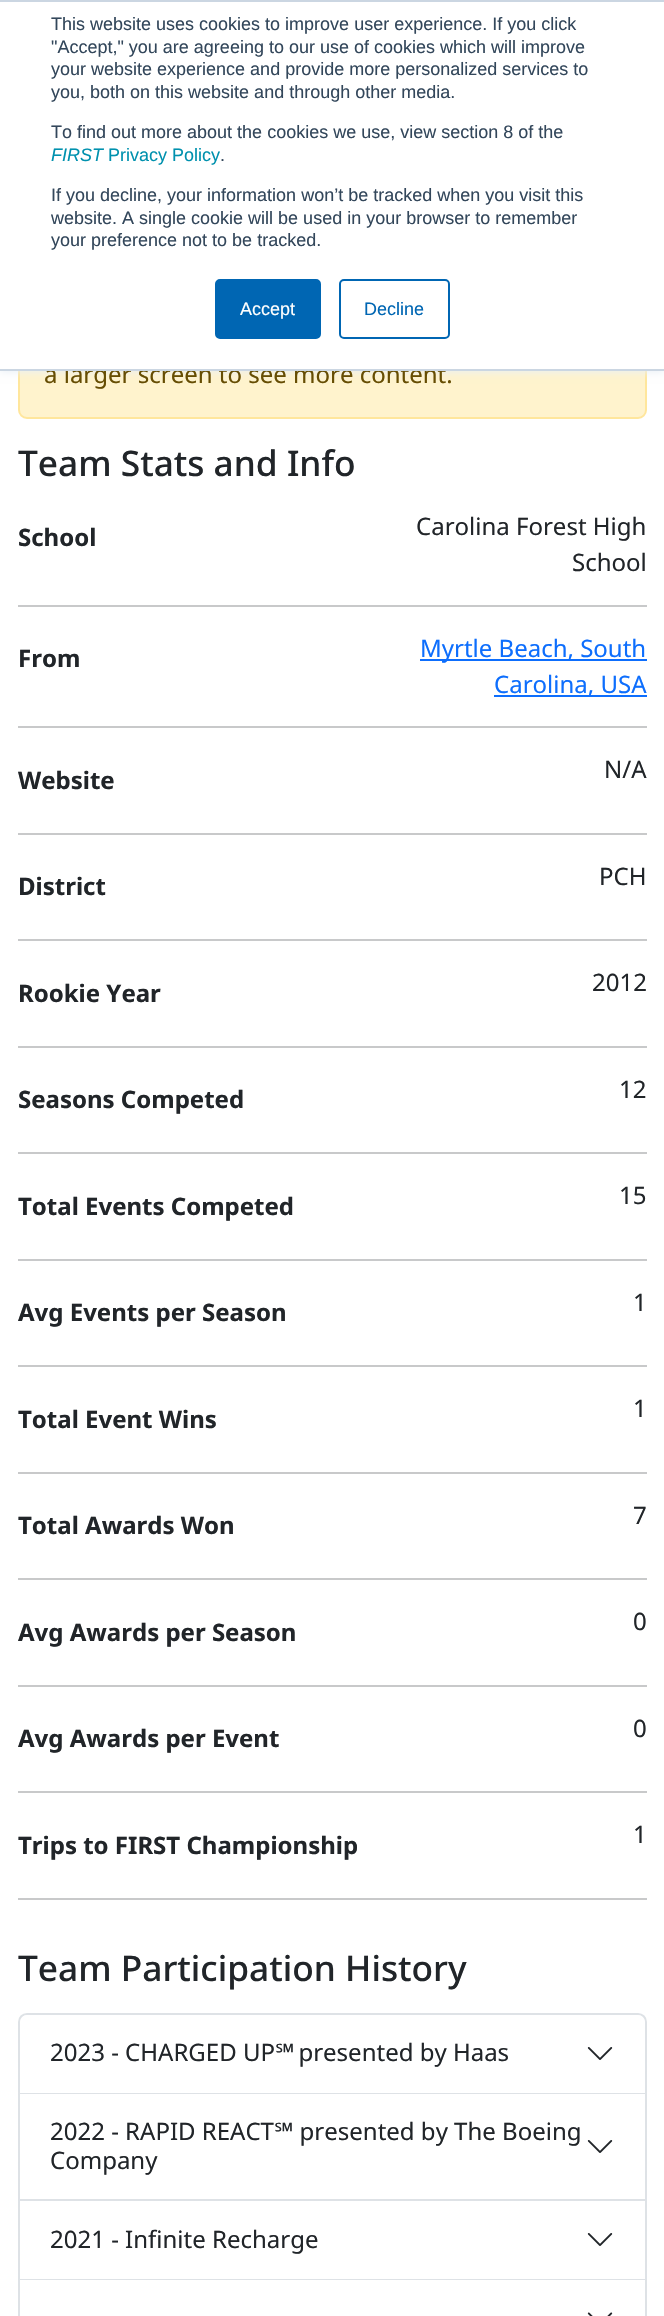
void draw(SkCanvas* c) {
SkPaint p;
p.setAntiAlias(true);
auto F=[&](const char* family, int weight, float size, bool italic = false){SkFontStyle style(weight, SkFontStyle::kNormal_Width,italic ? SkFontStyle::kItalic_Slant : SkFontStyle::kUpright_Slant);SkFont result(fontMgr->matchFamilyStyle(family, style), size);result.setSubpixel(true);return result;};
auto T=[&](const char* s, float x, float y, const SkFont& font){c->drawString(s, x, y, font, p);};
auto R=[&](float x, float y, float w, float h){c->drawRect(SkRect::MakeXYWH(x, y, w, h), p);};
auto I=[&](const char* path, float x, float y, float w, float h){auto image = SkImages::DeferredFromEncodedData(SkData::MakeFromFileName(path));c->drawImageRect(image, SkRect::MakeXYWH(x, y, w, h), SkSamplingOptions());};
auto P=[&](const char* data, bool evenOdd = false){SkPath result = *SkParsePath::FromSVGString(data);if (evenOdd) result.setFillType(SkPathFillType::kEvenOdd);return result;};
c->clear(0xffffffff);
p.setColor(0xfffff3cd);
c->drawRoundRect(SkRect::MakeXYWH(19,213,627,205),8,8,p);
p.setStroke(true);
p.setStrokeWidth(2);
p.setColor(0xffffe69c);
c->drawRoundRect(SkRect::MakeXYWH(19,213,627,205),8,8,p);
p.setStroke(false);
p.setColor(0xffeaf0f6);
p.setMaskFilter(SkMaskFilter::MakeBlur(kNormal_SkBlurStyle, 4));
c->drawRect(SkRect::MakeXYWH(0,2,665,370),p);
p.setMaskFilter(nullptr);
auto f1 = F("Noto Sans",400,24);
p.setColor(0xff664d03);
T("a larger screen to see more content.",44,383,f1);
p.setColor(0xffffffff);
R(0,2,664,367);
p.setColor(0xffcbd6e2);
R(0,0,664,2);
R(0,369,664,2);
auto f2 = F("Liberation Sans",400,18);
p.setColor(0xff33475b);
T("This website uses cookies to improve user experience. If you click",51,30,f2);
T("\"Accept,\" you are agreeing to our use of cookies which will improve",51,53,f2);
T("your website experience and provide more personalized services to",51,75,f2);
T("you, both on this website and through other media.",51,98,f2);
T("To find out more about the cookies we use, view section 8 of the",51,138,f2);
auto f3 = F("Liberation Sans",400,18,true);
p.setColor(0xff0091ae);
T("FIRST",51,161,f3);
T("Privacy Policy",108,161,f2);
p.setColor(0xff33475b);
T(".",220,161,f2);
T("If you decline, your information won’t be tracked when you visit this",51,201,f2);
T("website. A single cookie will be used in your browser to remember",51,224,f2);
T("your preference not to be tracked.",51,246,f2);
p.setColor(0xff0066b3);
c->drawRoundRect(SkRect::MakeXYWH(216,280,104,58),4,4,p);
p.setStroke(true);
c->drawRoundRect(SkRect::MakeXYWH(216,280,104,58),4,4,p);
p.setStroke(false);
p.setColor(0xffffffff);
T("Accept",240,315,f2);
p.setStroke(true);
p.setColor(0xff0066b3);
c->drawRoundRect(SkRect::MakeXYWH(340,280,109,58),4,4,p);
p.setStroke(false);
T("Decline",364,315,f2);
auto f4 = F("Noto Sans",500,35.25);
p.setColor(0xff212529);
T("Team Stats and Info",18,476,f4);
auto f5 = F("Noto Sans",700,24);
T("School",18,546,f5);
T("Carolina Forest High",416,535,f1);
T("School",572,571,f1);
p.setColor(0xffc8c9ca);
R(18,605,629,2);
p.setColor(0xff212529);
T("From",18,667,f5);
p.setColor(0xff0d6efd);
R(420,659,227,2);
T("Myrtle Beach, South",420,657,f1);
R(494,695,153,2);
T("Carolina, USA",494,693,f1);
p.setColor(0xffc8c9ca);
R(18,726,629,2);
p.setColor(0xff212529);
T("Website",18,789,f5);
T("N/A",604,778,f1);
p.setColor(0xffc8c9ca);
R(18,833,629,2);
p.setColor(0xff212529);
T("District",18,895,f5);
T("PCH",599,885,f1);
p.setColor(0xffc8c9ca);
R(18,939,629,2);
p.setColor(0xff212529);
T("Rookie Year",18,1002,f5);
T("2012",592,991,f1);
p.setColor(0xffc8c9ca);
R(18,1046,629,2);
p.setColor(0xff212529);
T("Seasons Competed",18,1108,f5);
T("12",619,1098,f1);
p.setColor(0xffc8c9ca);
R(18,1152,629,2);
p.setColor(0xff212529);
T("Total Events Competed",18,1215,f5);
T("15",619,1204,f1);
p.setColor(0xffc8c9ca);
R(18,1259,629,2);
p.setColor(0xff212529);
T("Avg Events per Season",18,1321,f5);
T("1",633,1311,f1);
p.setColor(0xffc8c9ca);
R(18,1365,629,2);
p.setColor(0xff212529);
T("Total Event Wins",18,1428,f5);
T("1",633,1417,f1);
p.setColor(0xffc8c9ca);
R(18,1472,629,2);
p.setColor(0xff212529);
T("Total Awards Won",18,1534,f5);
T("7",633,1524,f1);
p.setColor(0xffc8c9ca);
R(18,1578,629,2);
p.setColor(0xff212529);
T("Avg Awards per Season",18,1641,f5);
T("0",633,1630,f1);
p.setColor(0xffc8c9ca);
R(18,1685,629,2);
p.setColor(0xff212529);
T("Avg Awards per Event",18,1747,f5);
T("0",633,1737,f1);
p.setColor(0xffc8c9ca);
R(18,1791,629,2);
p.setColor(0xff212529);
T("Trips to FIRST Championship",18,1854,f5);
T("1",633,1843,f1);
p.setColor(0xffc8c9ca);
R(18,1898,629,2);
p.setColor(0xff212529);
T("Team Participation History",18,1981,f4);
p.setStroke(true);
p.setColor(0xffdee2e6);
c->drawPath(P("M27 2014h611c4.5 0 8 3.5 8 8v71h-627v-71c0-4.5 3.5-8 8-8z"),p);
p.setStroke(false);
p.setColor(0xffffffff);
c->drawPath(P("M28 2015h609c4.5 0 8 3.5 8 8v70h-625v-70c0-4.5 3.5-8 8-8z"),p);
p.setColor(0xff212529);
T("2023 - CHARGED UP℠ presented by Haas",50,2061,f1);
I("1.png",587,2047,26,13);
p.setColor(0xffdee2e6);
R(645,2094,2,222);
R(18,2199,629,2);
R(18,2094,2,107);
p.setColor(0xff212529);
T("2022 - RAPID REACT℠ presented by The Boeing",50,2140,f1);
I("1.png",587,2140,26,13);
T("Company",50,2169,f1);
p.setColor(0xffdee2e6);
R(18,2279,629,1);
R(18,2201,2,115);
p.setColor(0xff212529);
T("2021 - Infinite Recharge",50,2248,f1);
I("1.png",587,2233,26,13);
I("2.png",587,2312,26,4);
}
